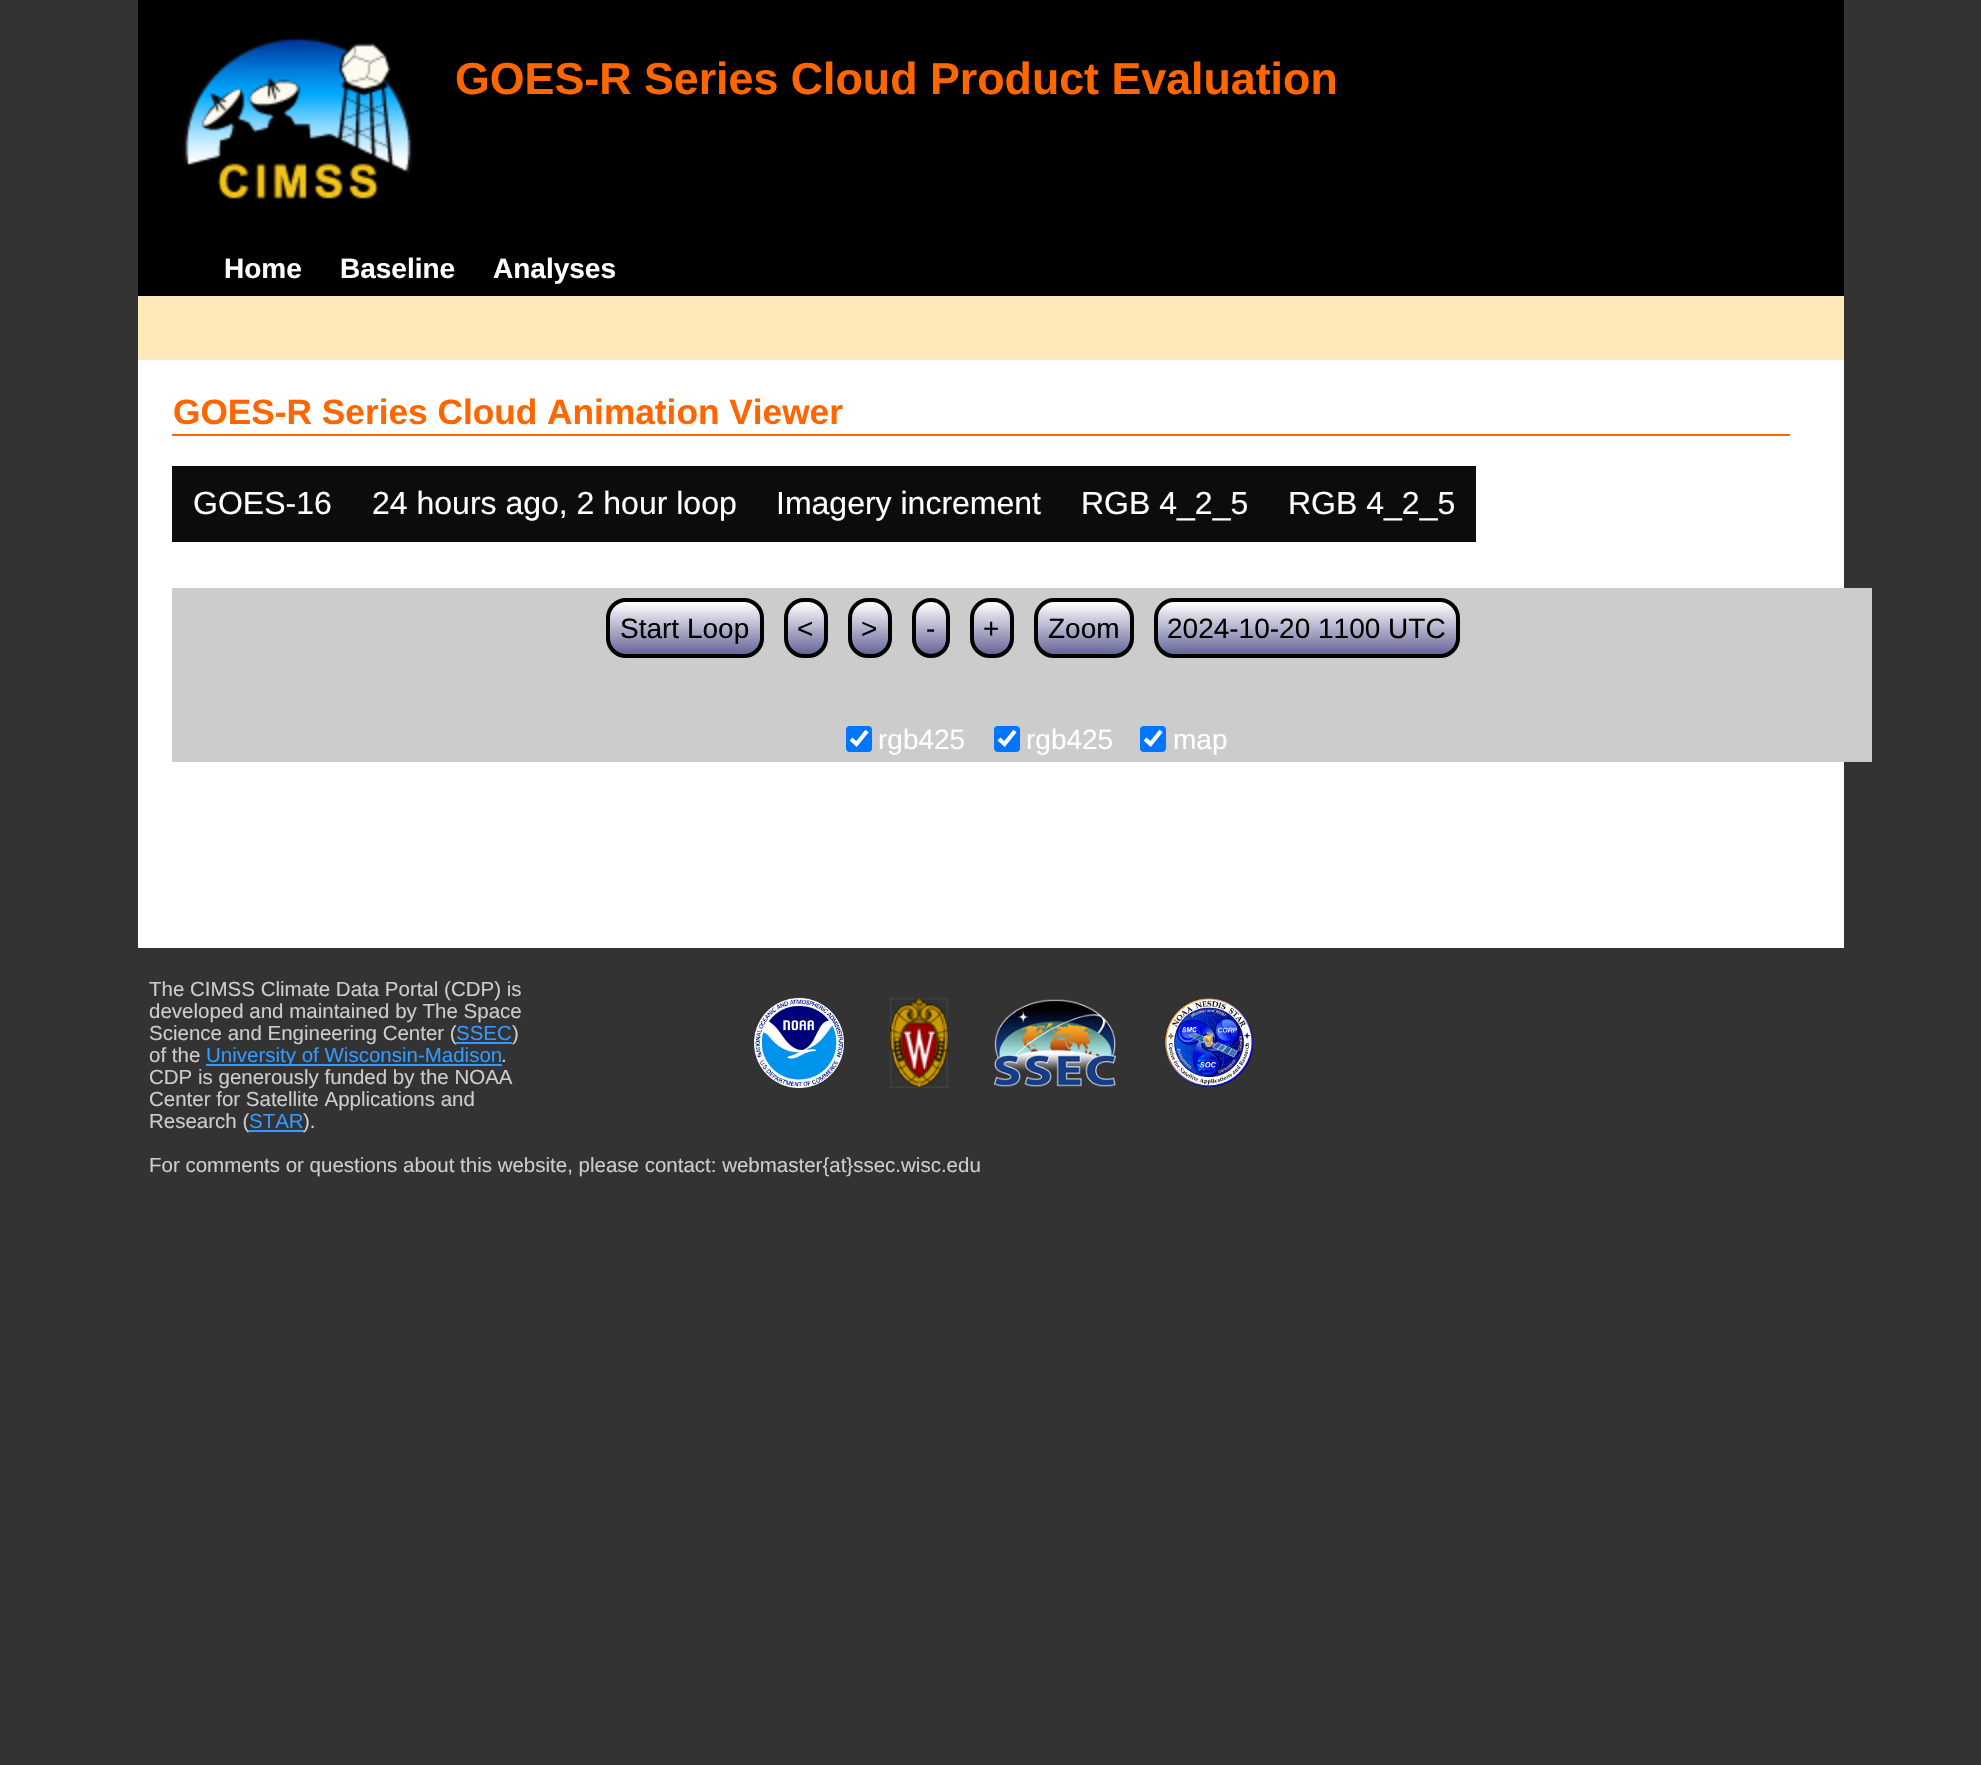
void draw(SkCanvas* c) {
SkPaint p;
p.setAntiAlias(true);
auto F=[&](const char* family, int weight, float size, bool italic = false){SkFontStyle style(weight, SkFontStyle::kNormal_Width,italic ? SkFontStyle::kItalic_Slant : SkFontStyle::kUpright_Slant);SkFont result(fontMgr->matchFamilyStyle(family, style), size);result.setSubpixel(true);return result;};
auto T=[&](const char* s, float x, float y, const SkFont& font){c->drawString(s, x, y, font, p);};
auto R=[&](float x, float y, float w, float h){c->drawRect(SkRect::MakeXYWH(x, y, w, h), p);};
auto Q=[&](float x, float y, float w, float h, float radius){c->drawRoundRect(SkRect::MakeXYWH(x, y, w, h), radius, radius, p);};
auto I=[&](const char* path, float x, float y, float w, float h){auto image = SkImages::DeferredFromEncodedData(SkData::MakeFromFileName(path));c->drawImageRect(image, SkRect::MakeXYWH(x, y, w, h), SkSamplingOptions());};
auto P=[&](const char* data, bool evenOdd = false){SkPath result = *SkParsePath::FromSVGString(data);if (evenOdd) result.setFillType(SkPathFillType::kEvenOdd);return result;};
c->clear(0xff333333);
p.setColor(0xff000000);
R(138,0,1706,296);
I("1.png",183,38,230,161);
auto f1 = F("Liberation Sans",700,44.75);
p.setColor(0xffff6600);
T("GOES-R Series Cloud Product Evaluation",455,94,f1);
auto f2 = F("Liberation Sans",700,28);
p.setColor(0xffffffff);
T("Home",224,278,f2);
T("Baseline",340,278,f2);
T("Analyses",493,278,f2);
p.setColor(0xffffe9bb);
R(138,296,1706,64);
p.setColor(0xffffffff);
R(138,360,1706,588);
p.setColor(0xffff6600);
R(172,434,1618,2);
auto f3 = F("Liberation Sans",700,35.25);
T("GOES-R Series Cloud Animation Viewer",173,424,f3);
p.setColor(0xff0c0c0c);
R(172,466,1304,76);
auto f4 = F("Liberation Sans",400,32);
p.setColor(0xffffffff);
T("GOES-16",193,514,f4);
T("24 hours ago, 2 hour loop",372,514,f4);
T("Imagery increment",776,514,f4);
T("RGB 4_2_5",1081,514,f4);
T("RGB 4_2_5",1288,514,f4);
p.setColor(0xffcccccc);
R(172,588,1700,80);
c->save();
c->clipPath(P("M626 598h118c11 0 20 9 20 20v20c0 11-9 20-20 20h-118c-11 0-20-9-20-20v-20c0-11 9-20 20-20z"),true);
{
const SkColor colors[] = {0xffffffff,0xff666699};
const float stops[] = {0,1};
const SkPoint ends[] = {{685,602}, {685,654}};
p.setShader(SkGradientShader::MakeLinear(ends, colors, stops, 2, SkTileMode::kClamp));
p.setAlpha(255);
}
R(606,602,158,52);
c->restore();
p.setStroke(true);
p.setStrokeWidth(4);
p.setShader(nullptr);
p.setColor(0xff000000);
c->drawRoundRect(SkRect::MakeXYWH(608,600,154,56),18,18,p);
auto f5 = F("Liberation Sans",400,28);
p.setStroke(false);
T("Start Loop",620,638,f5);
c->save();
c->clipPath(P("M804 598h4c11 0 20 9 20 20v20c0 11-9 20-20 20h-4c-11 0-20-9-20-20v-20c0-11 9-20 20-20z"),true);
{
const SkColor colors[] = {0xffffffff,0xff666699};
const float stops[] = {0,1};
const SkPoint ends[] = {{806,602}, {806,654}};
p.setShader(SkGradientShader::MakeLinear(ends, colors, stops, 2, SkTileMode::kClamp));
p.setAlpha(255);
}
R(784,602,44,52);
c->restore();
p.setStroke(true);
p.setShader(nullptr);
p.setColor(0xff000000);
c->drawRoundRect(SkRect::MakeXYWH(786,600,40,56),18,18,p);
p.setStroke(false);
T("<",797,638,f5);
c->save();
c->clipPath(P("M868 598h4c11 0 20 9 20 20v20c0 11-9 20-20 20h-4c-11 0-20-9-20-20v-20c0-11 9-20 20-20z"),true);
{
const SkColor colors[] = {0xffffffff,0xff666699};
const float stops[] = {0,1};
const SkPoint ends[] = {{870,602}, {870,654}};
p.setShader(SkGradientShader::MakeLinear(ends, colors, stops, 2, SkTileMode::kClamp));
p.setAlpha(255);
}
R(848,602,44,52);
c->restore();
p.setStroke(true);
p.setShader(nullptr);
p.setColor(0xff000000);
c->drawRoundRect(SkRect::MakeXYWH(850,600,40,56),18,18,p);
p.setStroke(false);
T(">",861,638,f5);
c->save();
c->clipPath(P("M931 598c10.5 0 19 8.5 19 19v22c0 10.5-8.5 19-19 19c-10.5 0-19-8.5-19-19v-22c0-10.5 8.5-19 19-19z"),true);
{
const SkColor colors[] = {0xffffffff,0xff666699};
const float stops[] = {0,1};
const SkPoint ends[] = {{931,602}, {931,654}};
p.setShader(SkGradientShader::MakeLinear(ends, colors, stops, 2, SkTileMode::kClamp));
p.setAlpha(255);
}
R(912,602,38,52);
c->restore();
p.setStroke(true);
p.setShader(nullptr);
p.setColor(0xff000000);
c->drawRoundRect(SkRect::MakeXYWH(914,600,34,56),17,17,p);
p.setStroke(false);
T("-",926,638,f5);
c->save();
c->clipPath(P("M990 598h4c11 0 20 9 20 20v20c0 11-9 20-20 20h-4c-11 0-20-9-20-20v-20c0-11 9-20 20-20z"),true);
{
const SkColor colors[] = {0xffffffff,0xff666699};
const float stops[] = {0,1};
const SkPoint ends[] = {{992,602}, {992,654}};
p.setShader(SkGradientShader::MakeLinear(ends, colors, stops, 2, SkTileMode::kClamp));
p.setAlpha(255);
}
R(970,602,44,52);
c->restore();
p.setStroke(true);
p.setShader(nullptr);
p.setColor(0xff000000);
c->drawRoundRect(SkRect::MakeXYWH(972,600,40,56),18,18,p);
p.setStroke(false);
T("+",983,638,f5);
c->save();
c->clipPath(P("M1054 598h60c11 0 20 9 20 20v20c0 11-9 20-20 20h-60c-11 0-20-9-20-20v-20c0-11 9-20 20-20z"),true);
{
const SkColor colors[] = {0xffffffff,0xff666699};
const float stops[] = {0,1};
const SkPoint ends[] = {{1084,602}, {1084,654}};
p.setShader(SkGradientShader::MakeLinear(ends, colors, stops, 2, SkTileMode::kClamp));
p.setAlpha(255);
}
R(1034,602,100,52);
c->restore();
p.setStroke(true);
p.setShader(nullptr);
p.setColor(0xff000000);
c->drawRoundRect(SkRect::MakeXYWH(1036,600,96,56),18,18,p);
p.setStroke(false);
T("Zoom",1048,638,f5);
c->save();
c->clipPath(P("M1174 598h266c11 0 20 9 20 20v20c0 11-9 20-20 20h-266c-11 0-20-9-20-20v-20c0-11 9-20 20-20z"),true);
{
const SkColor colors[] = {0xffffffff,0xff666699};
const float stops[] = {0,1};
const SkPoint ends[] = {{1307,602}, {1307,654}};
p.setShader(SkGradientShader::MakeLinear(ends, colors, stops, 2, SkTileMode::kClamp));
p.setAlpha(255);
}
R(1154,602,306,52);
c->restore();
p.setStroke(true);
p.setShader(nullptr);
p.setColor(0xff000000);
c->drawRoundRect(SkRect::MakeXYWH(1156,600,302,56),18,18,p);
p.setStroke(false);
T("2024-10-20 1100 UTC",1167,638,f5);
p.setColor(0xffcccccc);
R(172,668,1700,94);
p.setColor(0xff0075ff);
Q(846,726,26,26,4);
p.setStroke(true);
p.setStrokeWidth(4.2);
p.setColor(0xffffffff);
c->drawPath(P("M851 739l5.5 5l10.5-13"),p);
p.setStroke(false);
T("rgb425",878,749,f5);
p.setColor(0xff0075ff);
Q(994,726,26,26,4);
p.setStroke(true);
p.setColor(0xffffffff);
c->drawPath(P("M999 739l5.5 5l10.5-13"),p);
p.setStroke(false);
T("rgb425",1026,749,f5);
p.setColor(0xff0075ff);
Q(1140,726,26,26,4);
p.setStroke(true);
p.setColor(0xffffffff);
c->drawPath(P("M1145 739l5.5 5l10.5-13"),p);
p.setStroke(false);
T("map",1173,749,f5);
auto f6 = F("Liberation Sans",400,20.5);
p.setColor(0xffcccccc);
T("The CIMSS Climate Data Portal (CDP) is",149,996,f6);
T("developed and maintained by The Space",149,1018,f6);
T("Science and Engineering Center (",149,1040,f6);
p.setColor(0xff3399ff);
T("SSEC",456,1040,f6);
R(456,1042,56,2);
p.setColor(0xffcccccc);
T(")",512,1040,f6);
T("of the",149,1062,f6);
p.setColor(0xff3399ff);
R(206,1064,296,2);
T("University of Wisconsin-Madison",206,1062,f6);
p.setColor(0xffcccccc);
T(".",501,1062,f6);
T("CDP is generously funded by the NOAA",149,1084,f6);
T("Center for Satellite Applications and",149,1106,f6);
T("Research (",149,1128,f6);
p.setColor(0xff3399ff);
T("STAR",249,1128,f6);
R(248,1130,56,2);
p.setColor(0xffcccccc);
T(").",303,1128,f6);
T("For comments or questions about this website, please contact: webmaster{at}ssec.wisc.edu",149,1172,f6);
I("2.png",754,998,90,90);
I("3.png",890,998,58,90);
I("4.png",994,999,122,88);
I("5.png",1164,998,90,89);
}
